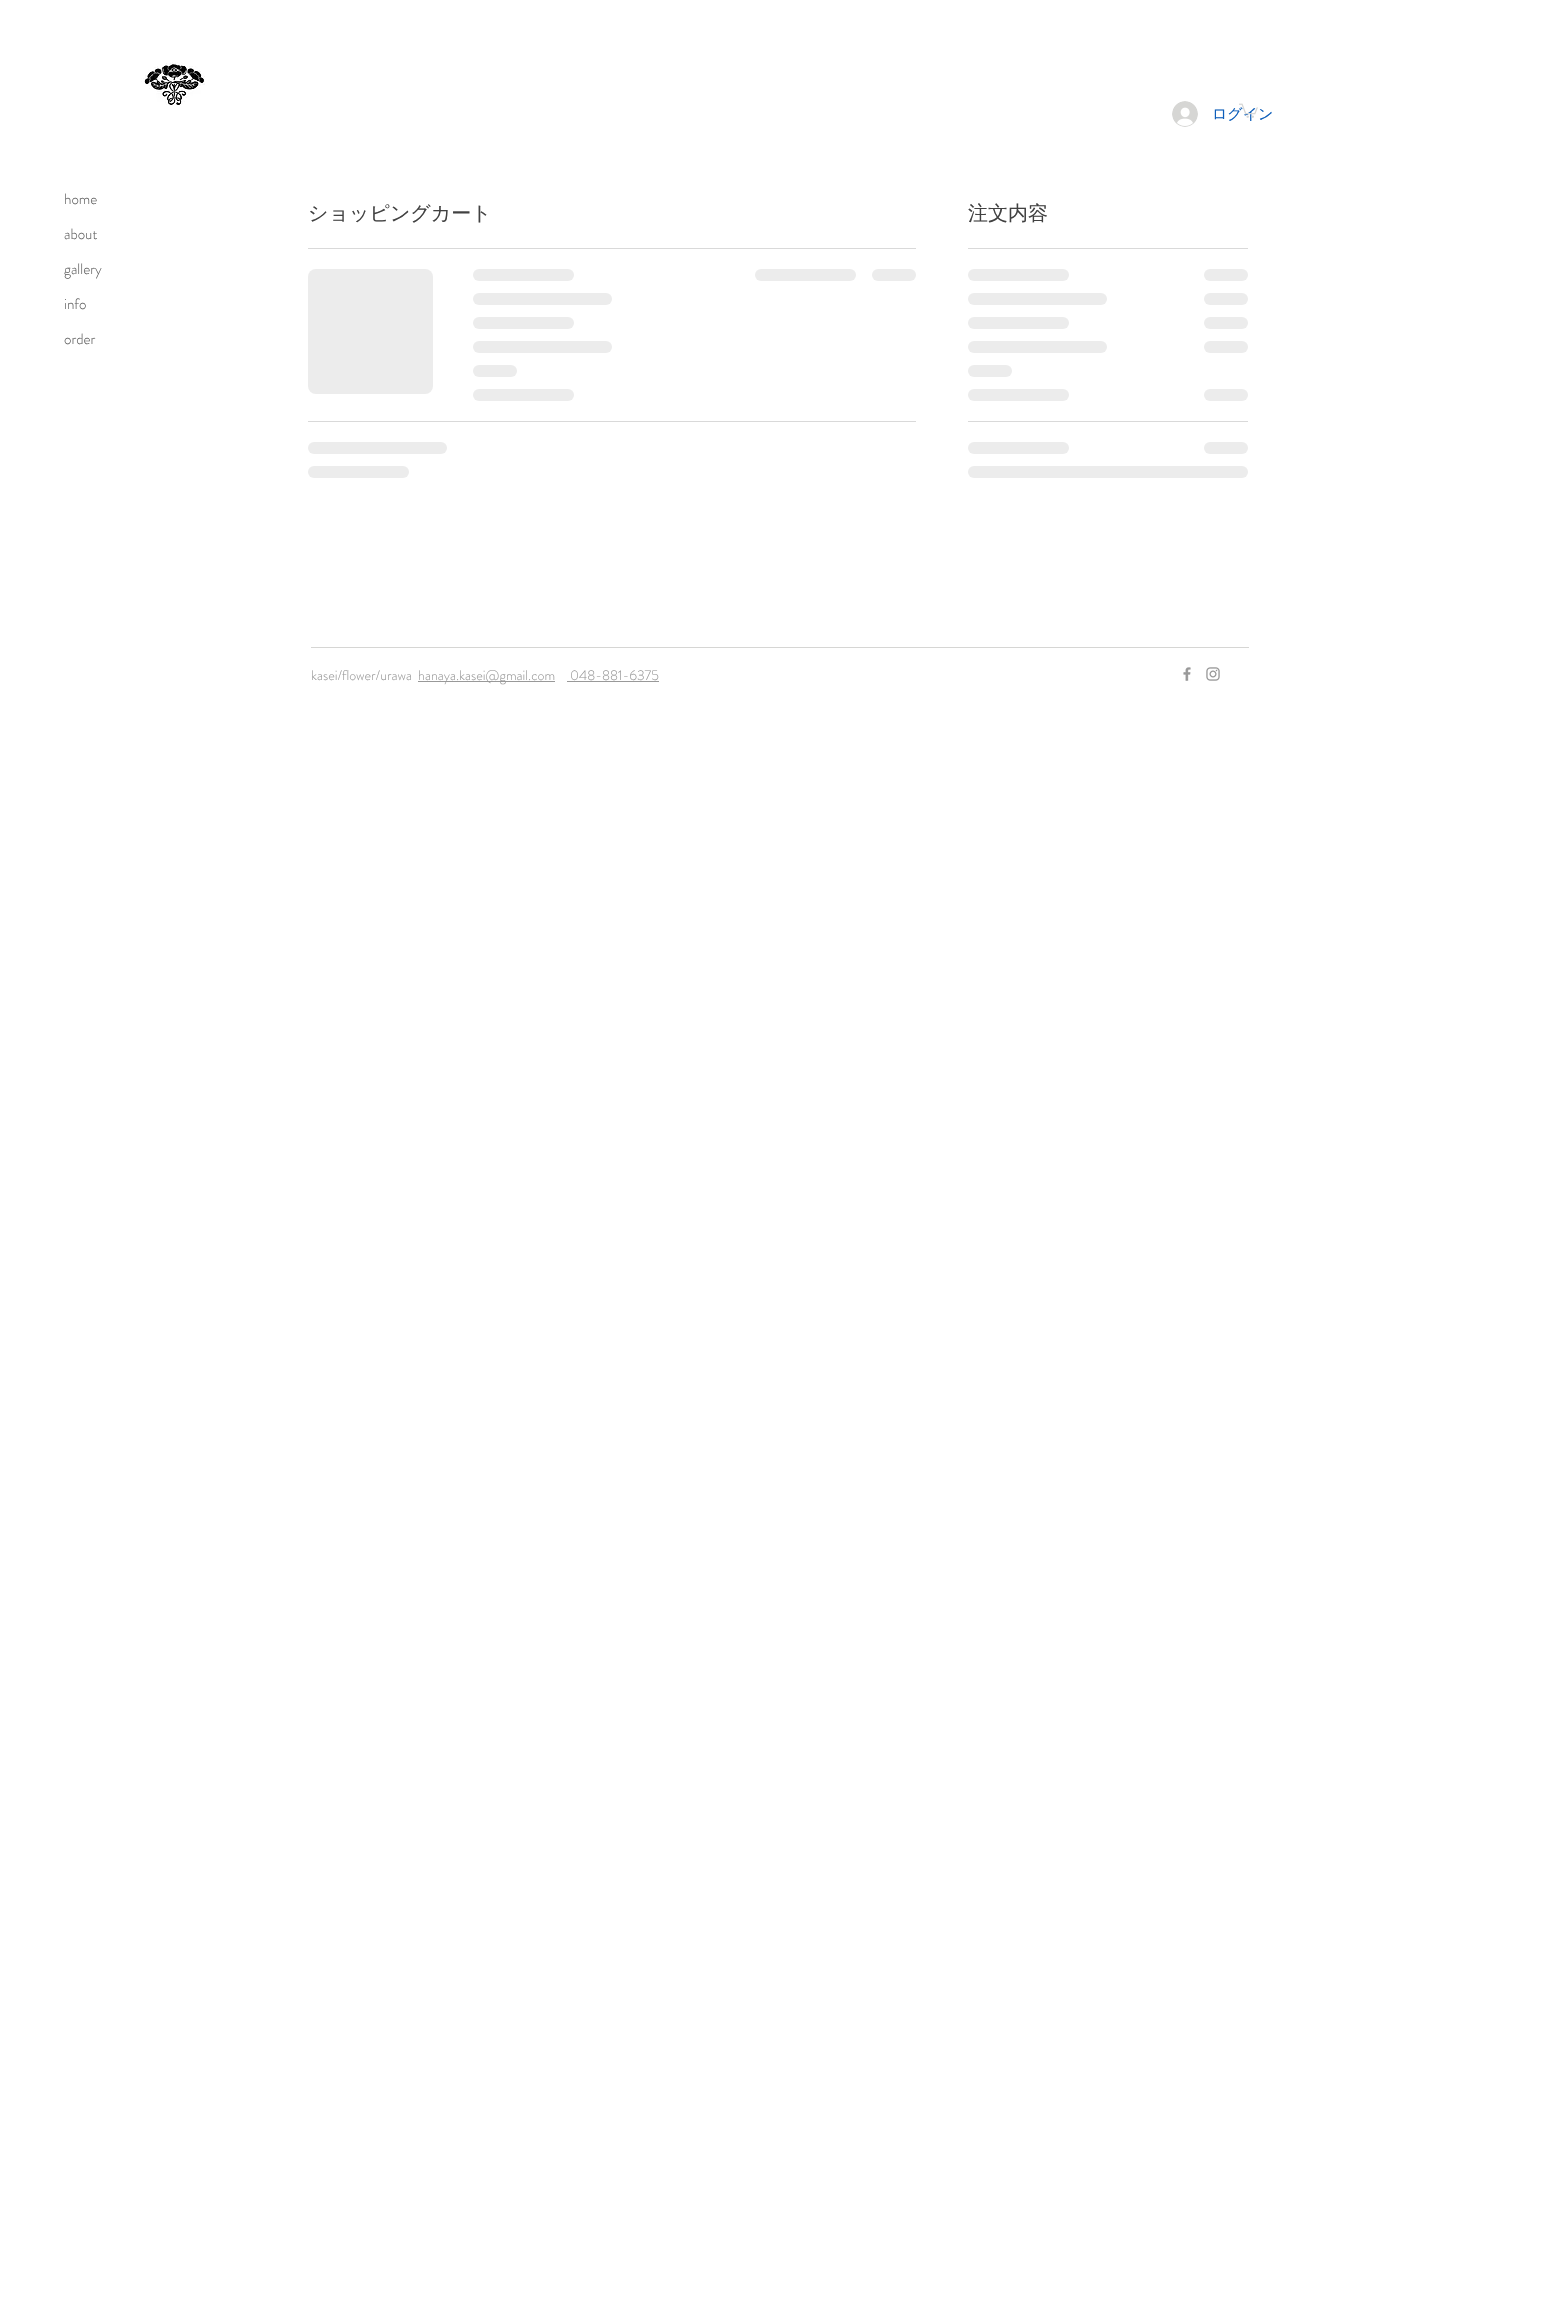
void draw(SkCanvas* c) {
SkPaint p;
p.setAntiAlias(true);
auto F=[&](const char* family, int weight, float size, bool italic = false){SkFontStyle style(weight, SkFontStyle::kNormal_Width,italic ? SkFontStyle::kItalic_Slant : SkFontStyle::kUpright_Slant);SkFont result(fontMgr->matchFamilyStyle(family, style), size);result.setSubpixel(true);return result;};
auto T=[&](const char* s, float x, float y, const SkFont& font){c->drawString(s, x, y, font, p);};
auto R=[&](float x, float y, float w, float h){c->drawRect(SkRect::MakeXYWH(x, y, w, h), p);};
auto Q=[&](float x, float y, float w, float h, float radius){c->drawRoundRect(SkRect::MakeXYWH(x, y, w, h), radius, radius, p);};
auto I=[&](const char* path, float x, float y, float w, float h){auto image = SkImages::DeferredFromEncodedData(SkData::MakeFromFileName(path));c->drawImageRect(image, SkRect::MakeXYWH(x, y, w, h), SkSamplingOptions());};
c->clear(0xffffffff);
I("1.png",141,62,64,43);
auto f1 = F("WenQuanYi Zen Hei",500,15);
p.setColor(0xff0d5eba);
T("ログイン",1212,119,f1);
I("2.png",1239,103,19,15);
I("3.png",1172,101,26,26);
auto f2 = F("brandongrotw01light",300,15);
p.setColor(0xff636363);
T("home",64,204,f2);
T("about",64,239,f2);
T("gallery",64,274,f2);
T("info",64,309,f2);
T("order",64,344,f2);
p.setColor(0xffd9d9d9);
R(308,248,608,1);
auto f3 = F("WenQuanYi Zen Hei",500,20);
p.setColor(0xff414141);
T("ショッピングカート",308,220,f3);
{
const SkColor colors[] = {0xffececec,0xffd9d9d9,0xffececec};
const float stops[] = {.25,.37,.63};
const SkPoint ends[] = {{308,332}, {808,332}};
p.setShader(SkGradientShader::MakeLinear(ends, colors, stops, 3, SkTileMode::kClamp));
p.setAlpha(255);
}
Q(308,269,125,125,8);
{
const SkColor colors[] = {0xffececec,0xffd9d9d9,0xffececec};
const float stops[] = {.25,.37,.63};
const SkPoint ends[] = {{473,275}, {877,275}};
p.setShader(SkGradientShader::MakeLinear(ends, colors, stops, 3, SkTileMode::kClamp));
p.setAlpha(255);
}
Q(473,269,101,12,6);
{
const SkColor colors[] = {0xffececec,0xffd9d9d9,0xffececec};
const float stops[] = {.25,.37,.63};
const SkPoint ends[] = {{473,299}, {1029,299}};
p.setShader(SkGradientShader::MakeLinear(ends, colors, stops, 3, SkTileMode::kClamp));
p.setAlpha(255);
}
Q(473,293,139,12,6);
{
const SkColor colors[] = {0xffececec,0xffd9d9d9,0xffececec};
const float stops[] = {.25,.37,.63};
const SkPoint ends[] = {{473,323}, {877,323}};
p.setShader(SkGradientShader::MakeLinear(ends, colors, stops, 3, SkTileMode::kClamp));
p.setAlpha(255);
}
Q(473,317,101,12,6);
{
const SkColor colors[] = {0xffececec,0xffd9d9d9,0xffececec};
const float stops[] = {.25,.37,.63};
const SkPoint ends[] = {{473,347}, {1029,347}};
p.setShader(SkGradientShader::MakeLinear(ends, colors, stops, 3, SkTileMode::kClamp));
p.setAlpha(255);
}
Q(473,341,139,12,6);
{
const SkColor colors[] = {0xffececec,0xffd9d9d9,0xffececec};
const float stops[] = {.25,.37,.63};
const SkPoint ends[] = {{473,371}, {649,371}};
p.setShader(SkGradientShader::MakeLinear(ends, colors, stops, 3, SkTileMode::kClamp));
p.setAlpha(255);
}
Q(473,365,44,12,6);
{
const SkColor colors[] = {0xffececec,0xffd9d9d9,0xffececec};
const float stops[] = {.25,.37,.63};
const SkPoint ends[] = {{473,395}, {877,395}};
p.setShader(SkGradientShader::MakeLinear(ends, colors, stops, 3, SkTileMode::kClamp));
p.setAlpha(255);
}
Q(473,389,101,12,6);
{
const SkColor colors[] = {0xffececec,0xffd9d9d9,0xffececec};
const float stops[] = {.25,.37,.63};
const SkPoint ends[] = {{755,275}, {1159,275}};
p.setShader(SkGradientShader::MakeLinear(ends, colors, stops, 3, SkTileMode::kClamp));
p.setAlpha(255);
}
Q(755,269,101,12,6);
{
const SkColor colors[] = {0xffececec,0xffd9d9d9,0xffececec};
const float stops[] = {.25,.37,.63};
const SkPoint ends[] = {{872,275}, {1048,275}};
p.setShader(SkGradientShader::MakeLinear(ends, colors, stops, 3, SkTileMode::kClamp));
p.setAlpha(255);
}
Q(872,269,44,12,6);
p.setShader(nullptr);
p.setColor(0xffd9d9d9);
R(308,421,608,1);
{
const SkColor colors[] = {0xffececec,0xffd9d9d9,0xffececec};
const float stops[] = {.25,.37,.63};
const SkPoint ends[] = {{308,448}, {864,448}};
p.setShader(SkGradientShader::MakeLinear(ends, colors, stops, 3, SkTileMode::kClamp));
p.setAlpha(255);
}
Q(308,442,139,12,6);
{
const SkColor colors[] = {0xffececec,0xffd9d9d9,0xffececec};
const float stops[] = {.25,.37,.63};
const SkPoint ends[] = {{308,472}, {712,472}};
p.setShader(SkGradientShader::MakeLinear(ends, colors, stops, 3, SkTileMode::kClamp));
p.setAlpha(255);
}
Q(308,466,101,12,6);
p.setShader(nullptr);
p.setColor(0xffd9d9d9);
R(968,248,280,1);
p.setColor(0xff414141);
T("注文内容",968,220,f3);
{
const SkColor colors[] = {0xffececec,0xffd9d9d9,0xffececec};
const float stops[] = {.25,.37,.63};
const SkPoint ends[] = {{968,275}, {1372,275}};
p.setShader(SkGradientShader::MakeLinear(ends, colors, stops, 3, SkTileMode::kClamp));
p.setAlpha(255);
}
Q(968,269,101,12,6);
{
const SkColor colors[] = {0xffececec,0xffd9d9d9,0xffececec};
const float stops[] = {.25,.37,.63};
const SkPoint ends[] = {{1204,275}, {1380,275}};
p.setShader(SkGradientShader::MakeLinear(ends, colors, stops, 3, SkTileMode::kClamp));
p.setAlpha(255);
}
Q(1204,269,44,12,6);
{
const SkColor colors[] = {0xffececec,0xffd9d9d9,0xffececec};
const float stops[] = {.25,.37,.63};
const SkPoint ends[] = {{968,299}, {1524,299}};
p.setShader(SkGradientShader::MakeLinear(ends, colors, stops, 3, SkTileMode::kClamp));
p.setAlpha(255);
}
Q(968,293,139,12,6);
{
const SkColor colors[] = {0xffececec,0xffd9d9d9,0xffececec};
const float stops[] = {.25,.37,.63};
const SkPoint ends[] = {{1204,299}, {1380,299}};
p.setShader(SkGradientShader::MakeLinear(ends, colors, stops, 3, SkTileMode::kClamp));
p.setAlpha(255);
}
Q(1204,293,44,12,6);
{
const SkColor colors[] = {0xffececec,0xffd9d9d9,0xffececec};
const float stops[] = {.25,.37,.63};
const SkPoint ends[] = {{968,323}, {1372,323}};
p.setShader(SkGradientShader::MakeLinear(ends, colors, stops, 3, SkTileMode::kClamp));
p.setAlpha(255);
}
Q(968,317,101,12,6);
{
const SkColor colors[] = {0xffececec,0xffd9d9d9,0xffececec};
const float stops[] = {.25,.37,.63};
const SkPoint ends[] = {{1204,323}, {1380,323}};
p.setShader(SkGradientShader::MakeLinear(ends, colors, stops, 3, SkTileMode::kClamp));
p.setAlpha(255);
}
Q(1204,317,44,12,6);
{
const SkColor colors[] = {0xffececec,0xffd9d9d9,0xffececec};
const float stops[] = {.25,.37,.63};
const SkPoint ends[] = {{968,347}, {1524,347}};
p.setShader(SkGradientShader::MakeLinear(ends, colors, stops, 3, SkTileMode::kClamp));
p.setAlpha(255);
}
Q(968,341,139,12,6);
{
const SkColor colors[] = {0xffececec,0xffd9d9d9,0xffececec};
const float stops[] = {.25,.37,.63};
const SkPoint ends[] = {{1204,347}, {1380,347}};
p.setShader(SkGradientShader::MakeLinear(ends, colors, stops, 3, SkTileMode::kClamp));
p.setAlpha(255);
}
Q(1204,341,44,12,6);
{
const SkColor colors[] = {0xffececec,0xffd9d9d9,0xffececec};
const float stops[] = {.25,.37,.63};
const SkPoint ends[] = {{968,371}, {1144,371}};
p.setShader(SkGradientShader::MakeLinear(ends, colors, stops, 3, SkTileMode::kClamp));
p.setAlpha(255);
}
Q(968,365,44,12,6);
{
const SkColor colors[] = {0xffececec,0xffd9d9d9,0xffececec};
const float stops[] = {.25,.37,.63};
const SkPoint ends[] = {{968,395}, {1372,395}};
p.setShader(SkGradientShader::MakeLinear(ends, colors, stops, 3, SkTileMode::kClamp));
p.setAlpha(255);
}
Q(968,389,101,12,6);
{
const SkColor colors[] = {0xffececec,0xffd9d9d9,0xffececec};
const float stops[] = {.25,.37,.63};
const SkPoint ends[] = {{1204,395}, {1380,395}};
p.setShader(SkGradientShader::MakeLinear(ends, colors, stops, 3, SkTileMode::kClamp));
p.setAlpha(255);
}
Q(1204,389,44,12,6);
p.setShader(nullptr);
p.setColor(0xffd9d9d9);
R(968,421,280,1);
{
const SkColor colors[] = {0xffececec,0xffd9d9d9,0xffececec};
const float stops[] = {.25,.37,.63};
const SkPoint ends[] = {{968,448}, {1372,448}};
p.setShader(SkGradientShader::MakeLinear(ends, colors, stops, 3, SkTileMode::kClamp));
p.setAlpha(255);
}
Q(968,442,101,12,6);
{
const SkColor colors[] = {0xffececec,0xffd9d9d9,0xffececec};
const float stops[] = {.25,.37,.63};
const SkPoint ends[] = {{1204,448}, {1380,448}};
p.setShader(SkGradientShader::MakeLinear(ends, colors, stops, 3, SkTileMode::kClamp));
p.setAlpha(255);
}
Q(1204,442,44,12,6);
{
const SkColor colors[] = {0xffececec,0xffd9d9d9,0xffececec};
const float stops[] = {.25,.37,.63};
const SkPoint ends[] = {{968,472}, {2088,472}};
p.setShader(SkGradientShader::MakeLinear(ends, colors, stops, 3, SkTileMode::kClamp));
p.setAlpha(255);
}
Q(968,466,280,12,6);
p.setShader(nullptr);
p.setColor(0xffd6d6d4);
R(311,647,938,1);
auto f4 = F("brandongrotw01light",300,14);
p.setColor(0xff999999);
T("kasei/flower/urawa",311,680,f4);
R(418,681,137,1);
T("hanaya.kasei@gmail.com",418,680,f4);
T("048-881-6375",570,680,f4);
R(567,681,92,1);
I("4.png",1183,667,8,14);
I("5.png",1206,667,14,14);
}
